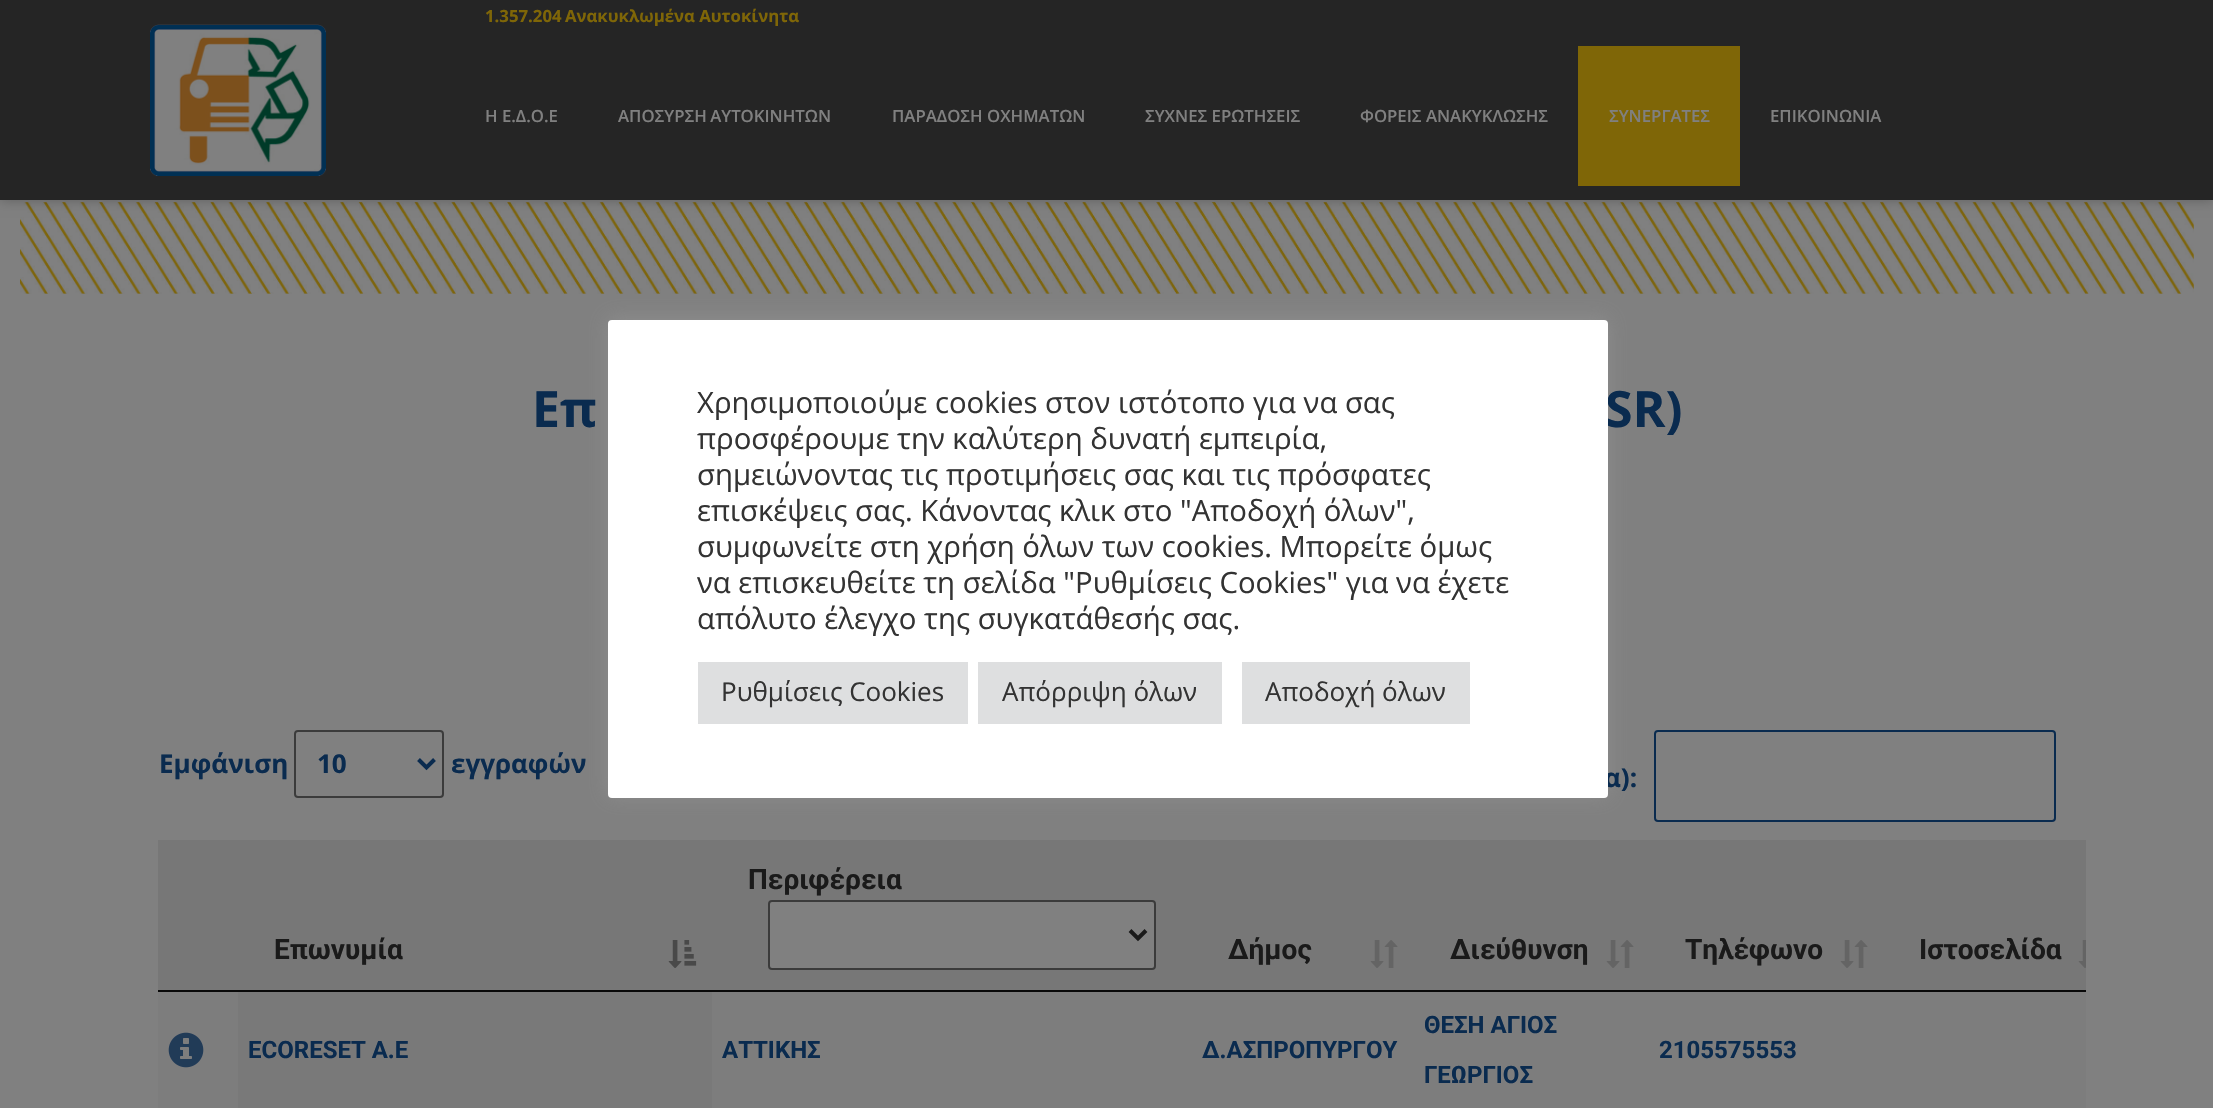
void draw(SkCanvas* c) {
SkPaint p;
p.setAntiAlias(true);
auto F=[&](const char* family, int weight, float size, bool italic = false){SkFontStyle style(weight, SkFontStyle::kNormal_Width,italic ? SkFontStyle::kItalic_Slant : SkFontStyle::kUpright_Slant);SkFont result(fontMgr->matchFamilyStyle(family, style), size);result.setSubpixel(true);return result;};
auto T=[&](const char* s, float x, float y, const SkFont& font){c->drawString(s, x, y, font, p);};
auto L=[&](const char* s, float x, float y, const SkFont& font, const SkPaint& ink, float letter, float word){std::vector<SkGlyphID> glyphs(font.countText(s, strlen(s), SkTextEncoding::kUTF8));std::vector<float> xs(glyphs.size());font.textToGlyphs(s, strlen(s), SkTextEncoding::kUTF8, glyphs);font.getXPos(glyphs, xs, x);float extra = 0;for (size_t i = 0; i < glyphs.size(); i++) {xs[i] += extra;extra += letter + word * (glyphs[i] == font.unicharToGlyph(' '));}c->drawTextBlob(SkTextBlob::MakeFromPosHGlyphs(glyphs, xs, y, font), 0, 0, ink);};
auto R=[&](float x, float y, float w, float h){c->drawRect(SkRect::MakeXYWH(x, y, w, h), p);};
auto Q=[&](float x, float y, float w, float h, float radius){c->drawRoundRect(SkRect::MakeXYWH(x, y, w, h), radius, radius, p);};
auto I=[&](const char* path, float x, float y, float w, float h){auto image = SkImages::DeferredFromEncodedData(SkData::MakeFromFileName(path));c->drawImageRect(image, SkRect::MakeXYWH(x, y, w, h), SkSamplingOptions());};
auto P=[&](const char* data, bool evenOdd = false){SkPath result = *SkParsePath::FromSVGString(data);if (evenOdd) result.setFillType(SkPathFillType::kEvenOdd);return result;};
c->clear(0xff808080);
I("2.png",20,202,2174,92);
p.setColor(0x42000000);
p.setMaskFilter(SkMaskFilter::MakeBlur(kNormal_SkBlurStyle, 6));
c->drawRect(SkRect::MakeXYWH(0,0,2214,200),p);
p.setMaskFilter(nullptr);
p.setColor(0xff252525);
R(0,0,2213,200);
auto f1 = F("Open Sans",700,16.75);
p.setColor(0xff7f6607);
T("1.357.204",485,22,f1);
T("Ανακυκλωμένα Αυτοκίνητα",565,22,f1);
I("1.png",150,24,176,152);
auto f2 = F("Open Sans",600,16.75);
p.setColor(0xff808080);
T("Η Ε.Δ.Ο.Ε",485,122,f2);
L("ΑΠΟΣΥΡΣΗ ΑΥΤΟΚΙΝΗΤΩΝ",618,122,f2,p,0,-1);
T("ΠΑΡΑΔΟΣΗ ΟΧΗΜΑΤΩΝ",892,122,f2);
T("ΣΥΧΝΕΣ ΕΡΩΤΗΣΕΙΣ",1145,122,f2);
T("ΦΟΡΕΙΣ ΑΝΑΚΥΚΛΩΣΗΣ",1360,122,f2);
p.setColor(0xff7f6607);
R(1578,46,162,140);
p.setColor(0xff808080);
T("ΣΥΝΕΡΓΑΤΕΣ",1609,122,f2);
T("ΕΠΙΚΟΙΝΩΝΙΑ",1770,122,f2);
p.setColor(0x4dacabab);
p.setMaskFilter(SkMaskFilter::MakeBlur(kNormal_SkBlurStyle, 10));
c->drawRoundRect(SkRect::MakeXYWH(608,318,1000,478),4,4,p);
p.setMaskFilter(nullptr);
auto f3 = F("Open Sans",700,50);
p.setColor(0xff0a2b4f);
T("SR)",1605,427,f3);
auto f4 = F("Open Sans",700,26);
T("α):",1604,787,f4);
p.setColor(0xffffffff);
Q(608,320,1000,478,4);
auto f5 = F("Open Sans",400,29.3);
p.setColor(0xff333333);
T("Χρησιμοποιούμε cookies στον ιστότοπο για να σας",697,413,f5);
T("προσφέρουμε την καλύτερη δυνατή εμπειρία,",697,449,f5);
T("σημειώνοντας τις προτιμήσεις σας και τις πρόσφατες",697,485,f5);
T("επισκέψεις σας. Κάνοντας κλικ στο \"Αποδοχή όλων\",",697,521,f5);
T("συμφωνείτε στη χρήση όλων των cookies. Μπορείτε όμως",697,557,f5);
T("να επισκευθείτε τη σελίδα \"Ρυθμίσεις Cookies\" για να έχετε",697,593,f5);
T("απόλυτο έλεγχο της συγκατάθεσής σας.",697,629,f5);
p.setColor(0xffdedfe0);
R(698,662,270,62);
auto f6 = F("Open Sans",400,26);
p.setColor(0xff333333);
T("Ρυθμίσεις Cookies",721,701,f6);
p.setColor(0xffdedfe0);
R(978,662,244,62);
p.setColor(0xff333333);
T("Απόρριψη όλων",1002,701,f6);
p.setColor(0xffdedfe0);
R(1242,662,228,62);
p.setColor(0xff333333);
T("Αποδοχή όλων",1265,701,f6);
p.setColor(0xff0a2b4f);
T("Επ",532,427,f3);
T("Εμφάνιση",159,773,f4);
p.setStroke(true);
p.setStrokeWidth(2);
p.setColor(0xff3b3b3b);
c->drawRoundRect(SkRect::MakeXYWH(295,731,148,66),3,3,p);
p.setStrokeWidth(4);
p.setColor(0xff0a2b4f);
c->drawPath(P("M418.5 759.5l8 8l8-8"),p);
p.setStroke(false);
T("10",317,773,f4);
T("εγγραφών",451,773,f4);
p.setStroke(true);
p.setStrokeWidth(2);
c->drawRoundRect(SkRect::MakeXYWH(1655,731,400,90),3,3,p);
p.setStroke(false);
p.setColor(0xff777777);
R(158,840,80,150);
p.setColor(0xff090909);
R(158,990,80,2);
p.setColor(0xff777777);
R(238,840,1848,150);
p.setColor(0xff090909);
R(238,990,1848,2);
auto f7 = F("Roboto",700,28);
p.setColor(0xff1a1a1a);
T("Περιφέρεια",748,889,f7);
p.setColor(0xff808080);
c->drawRoundRect(SkRect::MakeXYWH(769,901,386,68),3,3,p);
p.setStroke(true);
p.setColor(0xff3b3b3b);
c->drawRoundRect(SkRect::MakeXYWH(769,901,386,68),3,3,p);
p.setStrokeWidth(4);
p.setColor(0xff1a1a1a);
c->drawPath(P("M1130 930.5l8 8l8-8"),p);
p.setStroke(false);
T("Επωνυμία",274,959,f7);
I("3.png",668,940,29,28);
T("Δήμος",1228,959,f7);
I("4.png",1370,940,28,28);
T("Διεύθυνση",1450,959,f7);
I("4.png",1606,940,28,28);
T("Τηλέφωνο",1685,959,f7);
I("4.png",1840,940,28,28);
T("Ιστοσελίδα",1919,959,f7);
I("5.png",2078,940,8,28);
p.setColor(0xff7d7d7d);
R(158,992,1928,116);
I("6.png",168,1032,36,36);
p.setColor(0xff797979);
R(238,992,474,116);
auto f8 = F("Roboto",700,24);
p.setColor(0xff0a2b4f);
T("ECORESET A.E",248,1058,f8);
T("ΑΤΤΙΚΗΣ",722,1058,f8);
T("Δ.ΑΣΠΡΟΠΥΡΓΟΥ",1202,1058,f8);
T("ΘΕΣΗ ΑΓΙΟΣ",1424,1033,f8);
T("ΓΕΩΡΓΙΟΣ",1424,1083,f8);
T("2105575553",1659,1058,f8);
}
